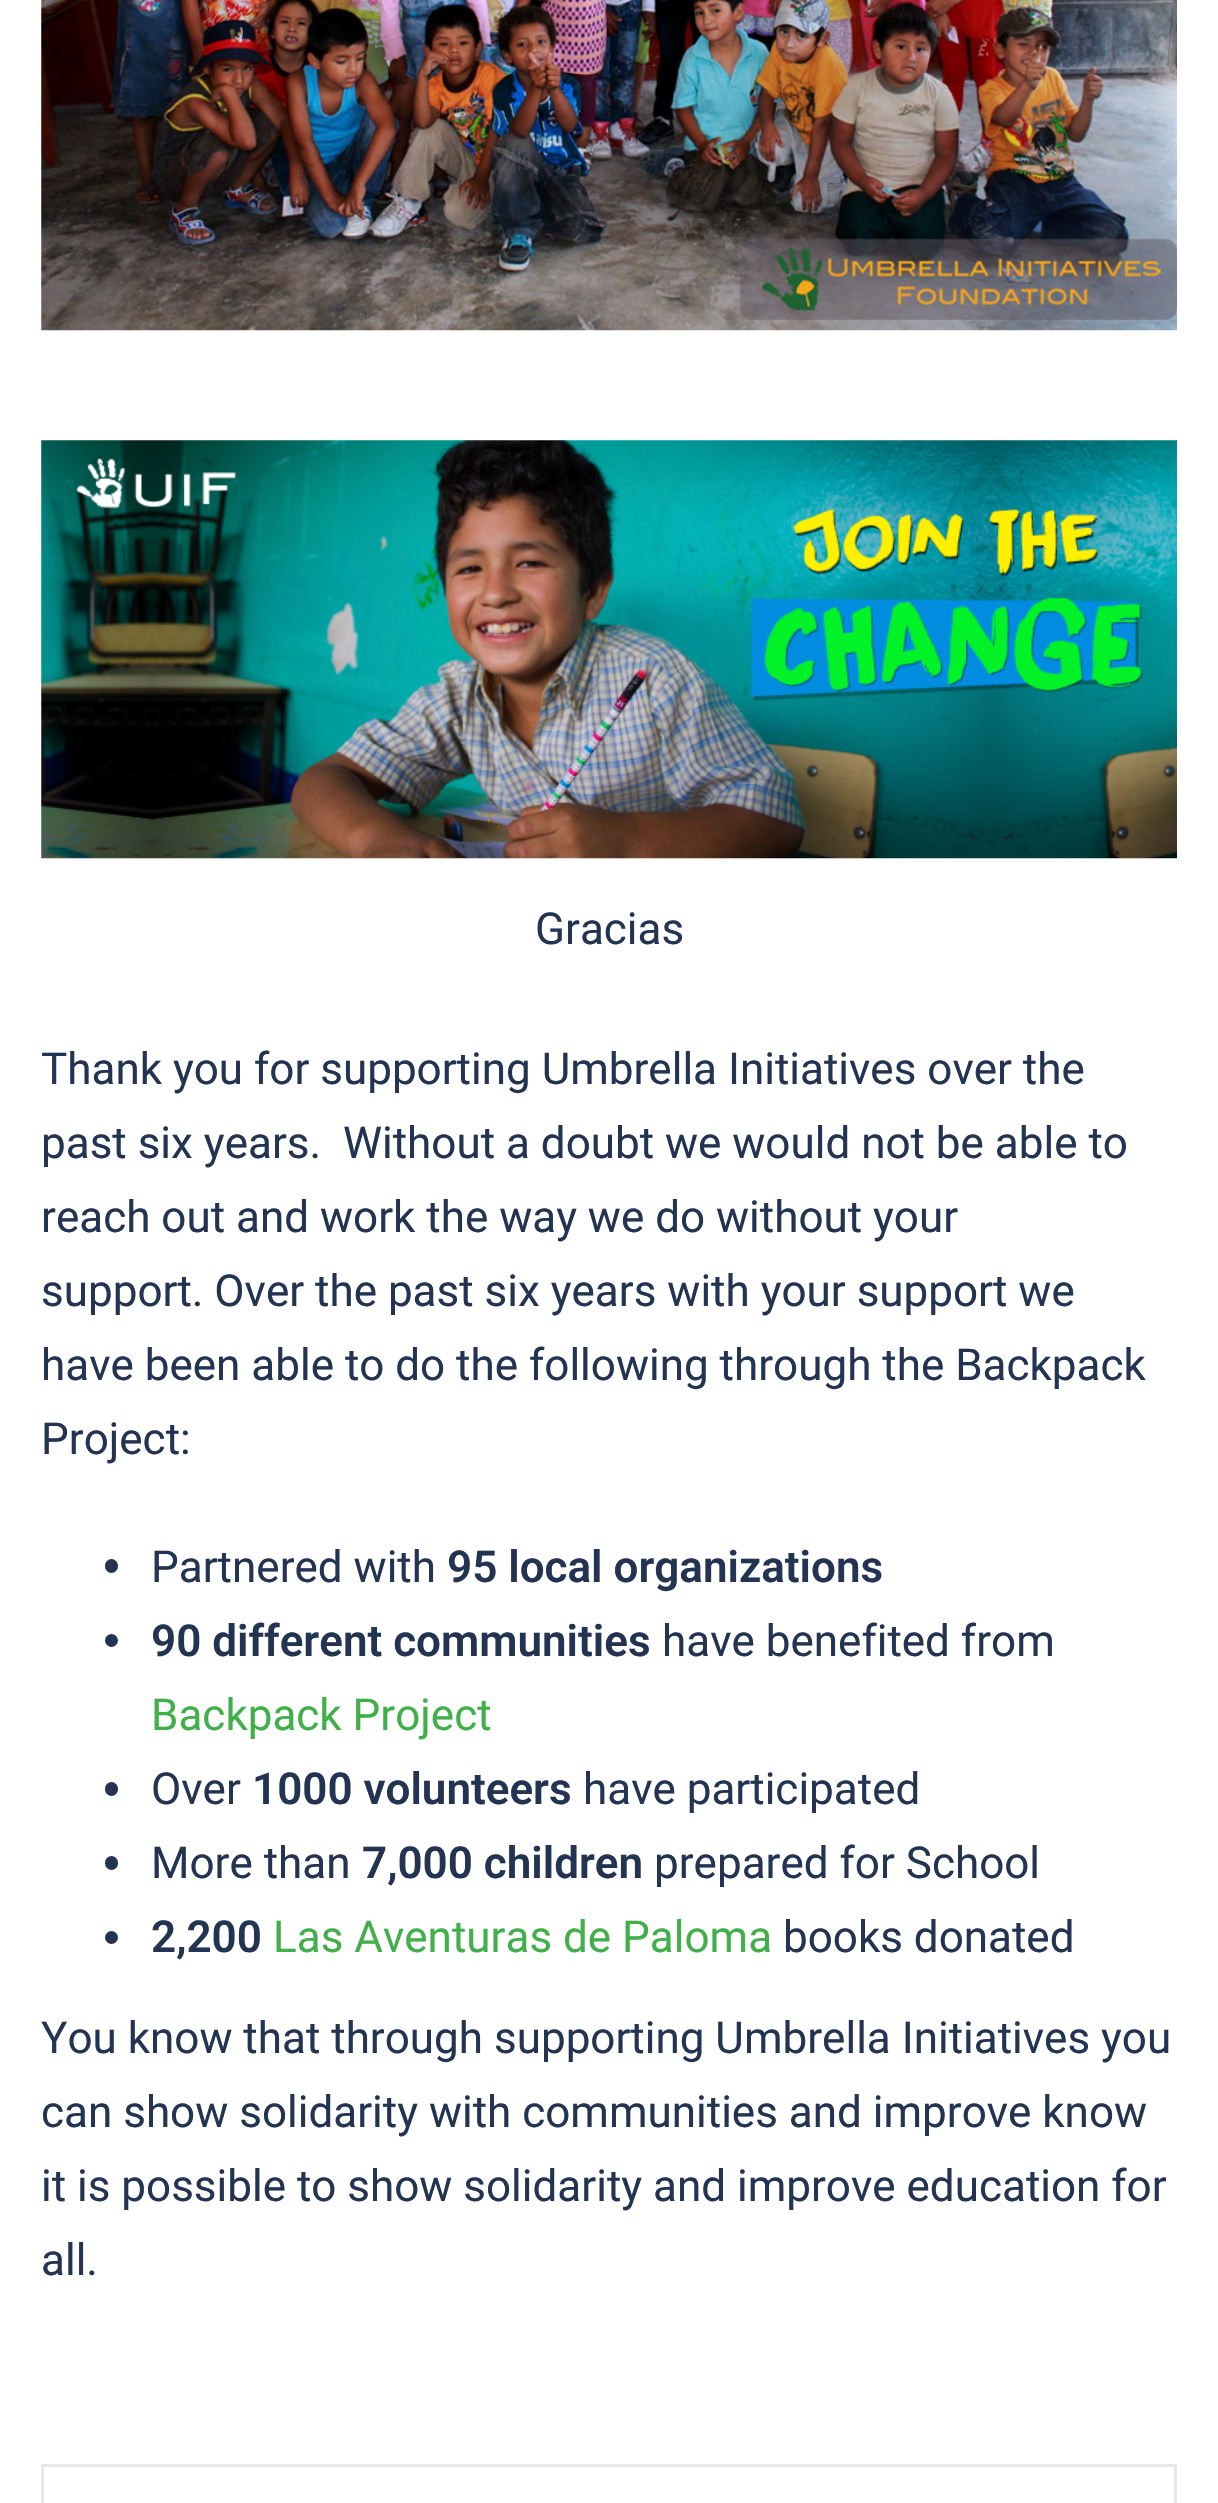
void draw(SkCanvas* c) {
SkPaint p;
p.setAntiAlias(true);
auto F=[&](const char* family, int weight, float size, bool italic = false){SkFontStyle style(weight, SkFontStyle::kNormal_Width,italic ? SkFontStyle::kItalic_Slant : SkFontStyle::kUpright_Slant);SkFont result(fontMgr->matchFamilyStyle(family, style), size);result.setSubpixel(true);return result;};
auto T=[&](const char* s, float x, float y, const SkFont& font){c->drawString(s, x, y, font, p);};
auto Q=[&](float x, float y, float w, float h, float radius){c->drawRoundRect(SkRect::MakeXYWH(x, y, w, h), radius, radius, p);};
auto I=[&](const char* path, float x, float y, float w, float h){auto image = SkImages::DeferredFromEncodedData(SkData::MakeFromFileName(path));c->drawImageRect(image, SkRect::MakeXYWH(x, y, w, h), SkSamplingOptions());};
c->clear(0xffffffff);
I("1.png",41,0,1136,331);
I("2.png",41,440,1136,419);
auto f1 = F("Roboto",400,44);
p.setColor(0xff233452);
T("Gracias",535,944,f1);
T("Thank you for supporting Umbrella Initiatives over the",41,1084,f1);
T("past six years.  Without a doubt we would not be able to",41,1158,f1);
T("reach out and work the way we do without your",41,1232,f1);
T("support. Over the past six years with your support we",41,1306,f1);
T("have been able to do the following through the Backpack",41,1380,f1);
T("Project:",41,1454,f1);
Q(105,1559,13,14,6.5);
T("Partnered with",151,1582,f1);
auto f2 = F("Roboto",600,44);
T("95 local organizations",447,1582,f2);
c->drawCircle(111.5,1640.5,6.5,p);
T("90 different communities",151,1656,f2);
T("have benefited from",662,1656,f1);
p.setColor(0xff41af4a);
T("Backpack Project",151,1730,f1);
p.setColor(0xff233452);
Q(105,1782,13,14,6.5);
T("Over",151,1804,f1);
T("1000 volunteers",252,1804,f2);
T("have participated",583,1804,f1);
Q(105,1856,13,14,6.5);
T("More than",151,1878,f1);
T("7,000 children",362,1878,f2);
T("prepared for School",654,1878,f1);
c->drawCircle(111.5,1937.5,6.5,p);
T("2,200",151,1952,f2);
p.setColor(0xff41af4a);
T("Las Aventuras de Paloma",273,1952,f1);
p.setColor(0xff233452);
T("books donated",783,1952,f1);
T("You know that through supporting Umbrella Initiatives you",41,2053,f1);
T("can show solidarity with communities and improve know",41,2127,f1);
T("it is possible to show solidarity and improve education for",41,2201,f1);
T("all.",41,2275,f1);
p.setStroke(true);
p.setStrokeWidth(3);
p.setColor(0xffe6e7ea);
c->drawRect(SkRect::MakeXYWH(42.5,2465.5,1133,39),p);
}
